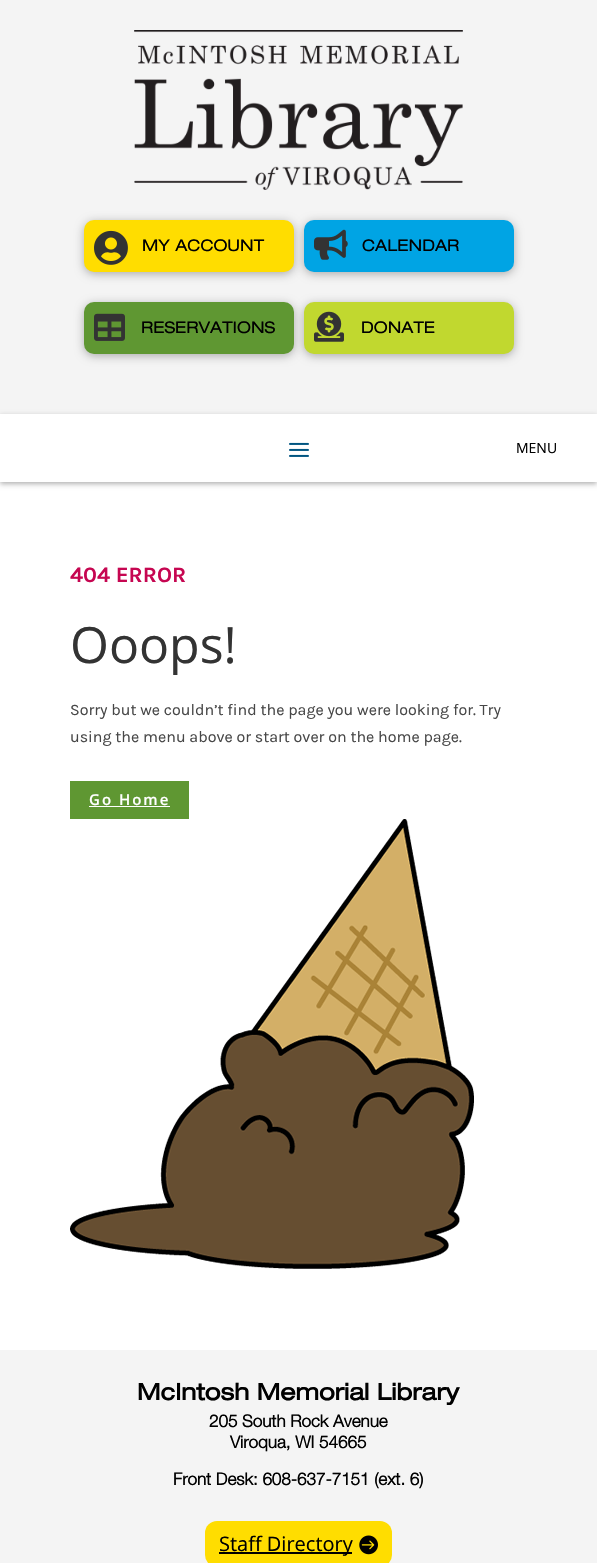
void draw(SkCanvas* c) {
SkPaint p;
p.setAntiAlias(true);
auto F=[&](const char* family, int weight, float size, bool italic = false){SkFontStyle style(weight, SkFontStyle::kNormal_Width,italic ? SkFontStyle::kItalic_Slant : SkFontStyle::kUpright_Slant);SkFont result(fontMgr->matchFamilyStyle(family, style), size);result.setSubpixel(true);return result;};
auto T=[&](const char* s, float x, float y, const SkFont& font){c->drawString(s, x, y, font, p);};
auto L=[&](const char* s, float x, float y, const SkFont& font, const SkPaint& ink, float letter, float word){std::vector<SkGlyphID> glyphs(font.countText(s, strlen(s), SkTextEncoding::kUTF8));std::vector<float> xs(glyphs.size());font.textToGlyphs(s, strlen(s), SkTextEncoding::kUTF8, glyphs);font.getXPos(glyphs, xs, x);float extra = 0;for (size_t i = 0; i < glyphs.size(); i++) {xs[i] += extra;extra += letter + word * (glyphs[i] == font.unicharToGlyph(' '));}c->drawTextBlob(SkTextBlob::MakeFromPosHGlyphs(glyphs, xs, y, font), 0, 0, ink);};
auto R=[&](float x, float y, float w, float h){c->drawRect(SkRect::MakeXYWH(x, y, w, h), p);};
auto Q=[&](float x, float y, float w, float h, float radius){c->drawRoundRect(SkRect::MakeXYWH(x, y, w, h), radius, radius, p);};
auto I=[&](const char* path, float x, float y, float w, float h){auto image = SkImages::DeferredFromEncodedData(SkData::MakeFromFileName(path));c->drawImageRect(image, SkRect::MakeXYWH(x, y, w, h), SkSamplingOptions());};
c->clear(0xffffffff);
p.setColor(0xfff4f4f4);
R(0,0,597,414);
I("1.png",134,30,329,160);
p.setColor(0x4d000000);
p.setMaskFilter(SkMaskFilter::MakeBlur(kNormal_SkBlurStyle, 5));
c->drawRoundRect(SkRect::MakeXYWH(84,222,210,52),10,10,p);
p.setMaskFilter(nullptr);
p.setColor(0xffffdd00);
Q(84,220,210,52,10);
I("2.png",94,230,34,35);
auto f1 = F("Helvetica Neue",500,16);
p.setColor(0xff000000);
T("MY ACCOUNT",142,251,f1);
p.setColor(0x4d000000);
p.setMaskFilter(SkMaskFilter::MakeBlur(kNormal_SkBlurStyle, 5));
c->drawRoundRect(SkRect::MakeXYWH(304,222,210,52),10,10,p);
p.setMaskFilter(nullptr);
p.setColor(0xff00a4e4);
Q(304,220,210,52,10);
I("3.png",314,229,34,31);
p.setColor(0xff000000);
T("CALENDAR",362,251,f1);
p.setColor(0x4d000000);
p.setMaskFilter(SkMaskFilter::MakeBlur(kNormal_SkBlurStyle, 5));
c->drawRoundRect(SkRect::MakeXYWH(84,304,210,52),10,10,p);
p.setMaskFilter(nullptr);
p.setColor(0xff5f9732);
Q(84,302,210,52,10);
I("4.png",94,313,31,28);
p.setColor(0xff000000);
T("RESERVATIONS",141,333,f1);
p.setColor(0x4d000000);
p.setMaskFilter(SkMaskFilter::MakeBlur(kNormal_SkBlurStyle, 5));
c->drawRoundRect(SkRect::MakeXYWH(304,304,210,52),10,10,p);
p.setMaskFilter(nullptr);
p.setColor(0xffc1d82f);
Q(304,302,210,52,10);
I("5.png",314,311,30,31);
p.setColor(0xff000000);
T("DONATE",361,333,f1);
p.setColor(0x4d000000);
p.setMaskFilter(SkMaskFilter::MakeBlur(kNormal_SkBlurStyle, 2.5));
c->drawRect(SkRect::MakeXYWH(0,416,597,68),p);
p.setMaskFilter(nullptr);
p.setColor(0xffffffff);
R(0,414,597,68);
I("6.png",289,442,20,15);
auto f2 = F("Open Sans",400,14);
p.setColor(0xff000000);
T("MENU",516,453,f2);
auto f3 = F("Karla",700,22);
p.setColor(0xffc60651);
T("404 ERROR",70,582,f3);
auto f4 = F("Open Sans",400,50);
p.setColor(0xff333333);
T("Ooops!",70,663,f4);
auto f5 = F("Karla",400,16);
p.setColor(0xff474747);
T("Sorry but we couldn’t find the page you were looking for. Try",70,715,f5);
T("using the menu above or start over on the home page.",70,742,f5);
p.setColor(0xff5f9732);
R(70,781,119,38);
auto f6 = F("Open Sans",600,15);
p.setColor(0xffffffff);
L("Go Home",89,805,f6,p,2,0);
R(89,806,81,1);
I("7.png",70,819,404,450);
p.setColor(0xfff4f4f4);
R(0,1350,597,213);
auto f7 = F("Helvetica Neue",700,23);
p.setColor(0xff000000);
T("McIntosh Memorial Library",137,1400,f7);
auto f8 = F("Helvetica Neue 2",700,17);
T("205 South Rock Avenue",209,1427,f8);
T("Viroqua, WI 54665",230,1448,f8);
T("Front Desk: 608-637-7151 (ext. 6)",173,1485,f8);
p.setColor(0xffffdd00);
Q(205,1521,187,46,12);
p.setColor(0xff000000);
R(219,1552,133,2);
auto f9 = F("Open Sans",400,20);
T("Staff Directory",219,1551,f9);
I("8.png",359,1535,19,20);
}
